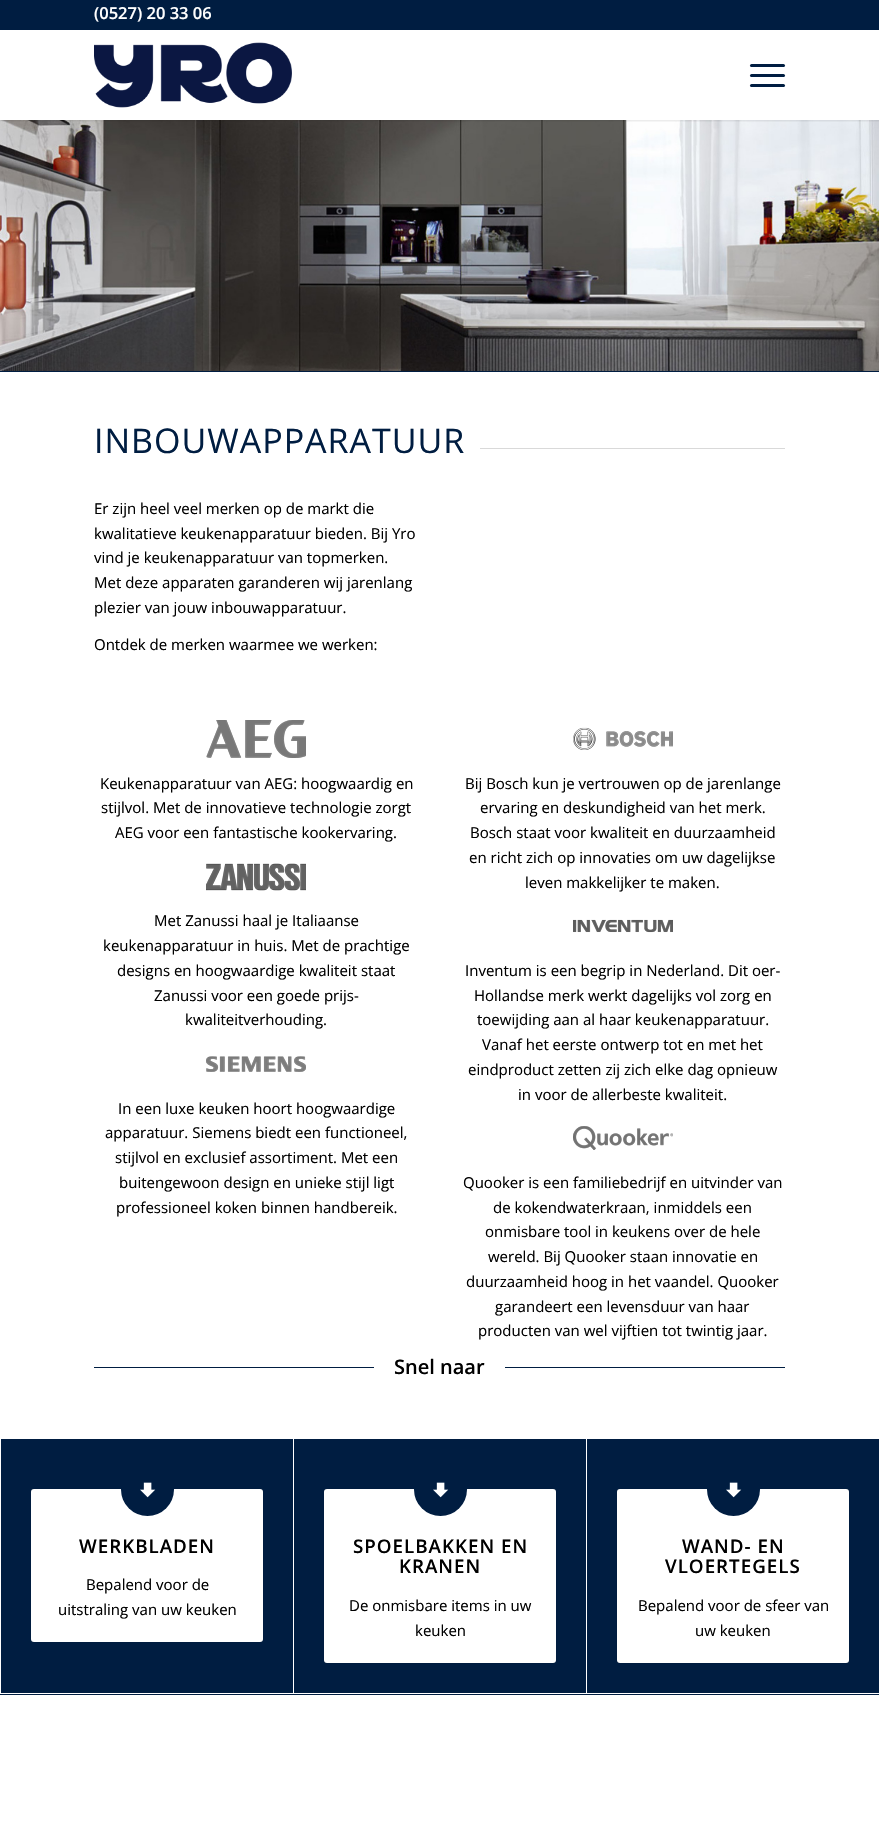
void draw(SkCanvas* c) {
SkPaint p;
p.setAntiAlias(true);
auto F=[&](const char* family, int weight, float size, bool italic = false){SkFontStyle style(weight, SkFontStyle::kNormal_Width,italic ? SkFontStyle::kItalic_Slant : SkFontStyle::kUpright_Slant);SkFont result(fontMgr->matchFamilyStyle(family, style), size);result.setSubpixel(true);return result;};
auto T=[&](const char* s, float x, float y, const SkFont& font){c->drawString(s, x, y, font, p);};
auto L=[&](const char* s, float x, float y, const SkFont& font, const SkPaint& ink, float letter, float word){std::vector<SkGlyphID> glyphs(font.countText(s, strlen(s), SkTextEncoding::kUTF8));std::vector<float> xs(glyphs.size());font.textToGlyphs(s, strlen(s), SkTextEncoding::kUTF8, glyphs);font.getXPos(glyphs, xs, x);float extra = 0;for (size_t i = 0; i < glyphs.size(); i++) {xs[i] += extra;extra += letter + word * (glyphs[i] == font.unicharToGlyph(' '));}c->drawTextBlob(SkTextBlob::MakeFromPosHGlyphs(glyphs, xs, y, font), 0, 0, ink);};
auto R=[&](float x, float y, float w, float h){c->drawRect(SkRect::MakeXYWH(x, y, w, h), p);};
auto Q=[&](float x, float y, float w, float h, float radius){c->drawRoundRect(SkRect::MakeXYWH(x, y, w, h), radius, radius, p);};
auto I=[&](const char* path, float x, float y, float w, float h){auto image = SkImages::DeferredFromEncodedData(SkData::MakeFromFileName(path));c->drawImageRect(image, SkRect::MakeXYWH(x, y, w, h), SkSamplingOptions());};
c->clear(0xffffffff);
I("2.png",0,120,879,251);
c->save();
c->clipRect(SkRect::MakeXYWH(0,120,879,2));
p.setColor(0x1a000000);
p.setMaskFilter(SkMaskFilter::MakeBlur(kNormal_SkBlurStyle, 1));
c->drawRect(SkRect::MakeXYWH(-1,-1,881,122),p);
p.setMaskFilter(nullptr);
c->restore();
p.setColor(0xff001d41);
R(0,0,879,30);
auto f1 = F("Open Sans",600,16.5);
p.setColor(0xffffffff);
T("(0527) 20 33 06",94,19,f1);
I("1.png",94,42,198,66);
p.setColor(0xff001d41);
Q(750,74,35,3,1.5);
Q(750,64,35,3,1.5);
Q(750,84,35,3,1.5);
R(0,371,879,1);
auto f2 = F("Open Sans",400,34);
L("INBOUWAPPARATUUR",94,453,f2,p,1,0);
p.setColor(0xffd9d9d9);
R(480,448,305,1);
auto f3 = F("Open Sans",400,15);
p.setColor(0xff000000);
T("Er zijn heel veel merken op de markt die",94,514,f3);
T("kwalitatieve keukenapparatuur bieden. Bij Yro",94,539,f3);
T("vind je keukenapparatuur van topmerken.",94,563,f3);
T("Met deze apparaten garanderen wij jarenlang",94,588,f3);
T("plezier van jouw inbouwapparatuur.",94,613,f3);
T("Ontdek de merken waarmee we werken:",94,650,f3);
I("3.png",206,720,100,38);
T("Keukenapparatuur van AEG: hoogwaardig en",100,789,f3);
T("stijlvol. Met de innovatieve technologie zorgt",101,813,f3);
T("AEG voor een fantastische kookervaring.",115,838,f3);
I("4.png",206,863,100,28);
T("Met Zanussi haal je Italiaanse",154,926,f3);
T("keukenapparatuur in huis. Met de prachtige",103,951,f3);
T("designs en hoogwaardige kwaliteit staat",117,976,f3);
T("Zanussi voor een goede prijs-",154,1001,f3);
T("kwaliteitverhouding.",185,1025,f3);
I("5.png",206,1056,100,16);
T("In een luxe keuken hoort hoogwaardige",118,1114,f3);
T("apparatuur. Siemens biedt een functioneel,",105,1138,f3);
T("stijlvol en exclusief assortiment. Met een",115,1163,f3);
T("buitengewoon design en unieke stijl ligt",119,1188,f3);
T("professioneel koken binnen handbereik.",116,1213,f3);
I("6.png",573,727,100,23);
T("Bij Bosch kun je vertrouwen op de jarenlange",465,789,f3);
T("ervaring en deskundigheid van het merk.",480,813,f3);
T("Bosch staat voor kwaliteit en duurzaamheid",470,838,f3);
T("en richt zich op innovaties om uw dagelijkse",469,863,f3);
T("leven makkelijker te maken.",525,888,f3);
I("7.png",573,919,100,14);
T("Inventum is een begrip in Nederland. Dit oer-",465,976,f3);
T("Hollandse merk werkt dagelijks vol zorg en",474,1001,f3);
T("toewijding aan al haar keukenapparatuur.",477,1025,f3);
T("Vanaf het eerste ontwerp tot en met het",482,1050,f3);
T("eindproduct zetten zij zich elke dag opnieuw",468,1075,f3);
T("in voor de allerbeste kwaliteit.",518,1100,f3);
I("8.png",573,1126,100,24);
T("Quooker is een familiebedrijf en uitvinder van",463,1188,f3);
T("de kokendwaterkraan, inmiddels een",493,1213,f3);
T("onmisbare tool in keukens over de hele",485,1237,f3);
T("wereld. Bij Quooker staan innovatie en",488,1262,f3);
T("duurzaamheid hoog in het vaandel. Quooker",466,1287,f3);
T("garandeert een levensduur van haar",495,1312,f3);
T("producten van wel vijftien tot twintig jaar.",478,1336,f3);
p.setColor(0xff001d41);
R(94,1367,280,1);
auto f4 = F("Open Sans",600,20);
p.setColor(0xff000000);
T("Snel naar",394,1374,f4);
p.setColor(0xff001d41);
R(505,1367,280,1);
R(1,1439,878,254);
p.setColor(0x4d000000);
p.setMaskFilter(SkMaskFilter::MakeBlur(kNormal_SkBlurStyle, .5));
c->drawRoundRect(SkRect::MakeXYWH(31,1489,232,153),3,3,p);
p.setMaskFilter(nullptr);
p.setColor(0xffffffff);
Q(31,1489,232,153,3);
p.setColor(0xff001d41);
c->drawCircle(147.5,1489.5,26.5,p);
I("9.png",140,1482,16,16);
auto f5 = F("Open Sans",600,18.75);
p.setColor(0xff000000);
L("WERKBLADEN",79,1553,f5,p,1,0);
T("Bepalend voor de",86,1590,f3);
T("uitstraling van uw keuken",58,1615,f3);
p.setColor(0xffffffff);
R(293,1439,1,254);
p.setColor(0x4d000000);
p.setMaskFilter(SkMaskFilter::MakeBlur(kNormal_SkBlurStyle, .5));
c->drawRoundRect(SkRect::MakeXYWH(324,1489,232,174),3,3,p);
p.setMaskFilter(nullptr);
p.setColor(0xffffffff);
Q(324,1489,232,174,3);
p.setColor(0xff001d41);
c->drawCircle(440.5,1489.5,26.5,p);
I("9.png",433,1482,16,16);
p.setColor(0xff000000);
L("SPOELBAKKEN EN",353,1553,f5,p,1,0);
L("KRANEN",399,1573,f5,p,1,0);
T("De onmisbare items in uw",349,1611,f3);
T("keuken",415,1636,f3);
p.setColor(0xffffffff);
R(586,1439,1,254);
p.setColor(0x4d000000);
p.setMaskFilter(SkMaskFilter::MakeBlur(kNormal_SkBlurStyle, .5));
c->drawRoundRect(SkRect::MakeXYWH(617,1489,232,174),3,3,p);
p.setMaskFilter(nullptr);
p.setColor(0xffffffff);
Q(617,1489,232,174,3);
p.setColor(0xff001d41);
c->drawCircle(733.5,1489.5,26.5,p);
I("9.png",726,1482,16,16);
p.setColor(0xff000000);
L("WAND- EN",682,1553,f5,p,1,0);
L("VLOERTEGELS",665,1573,f5,p,1,0);
T("Bepalend voor de sfeer van",638,1611,f3);
T("uw keuken",695,1636,f3);
p.setColor(0xff001d41);
R(0,1694,879,1);
}
